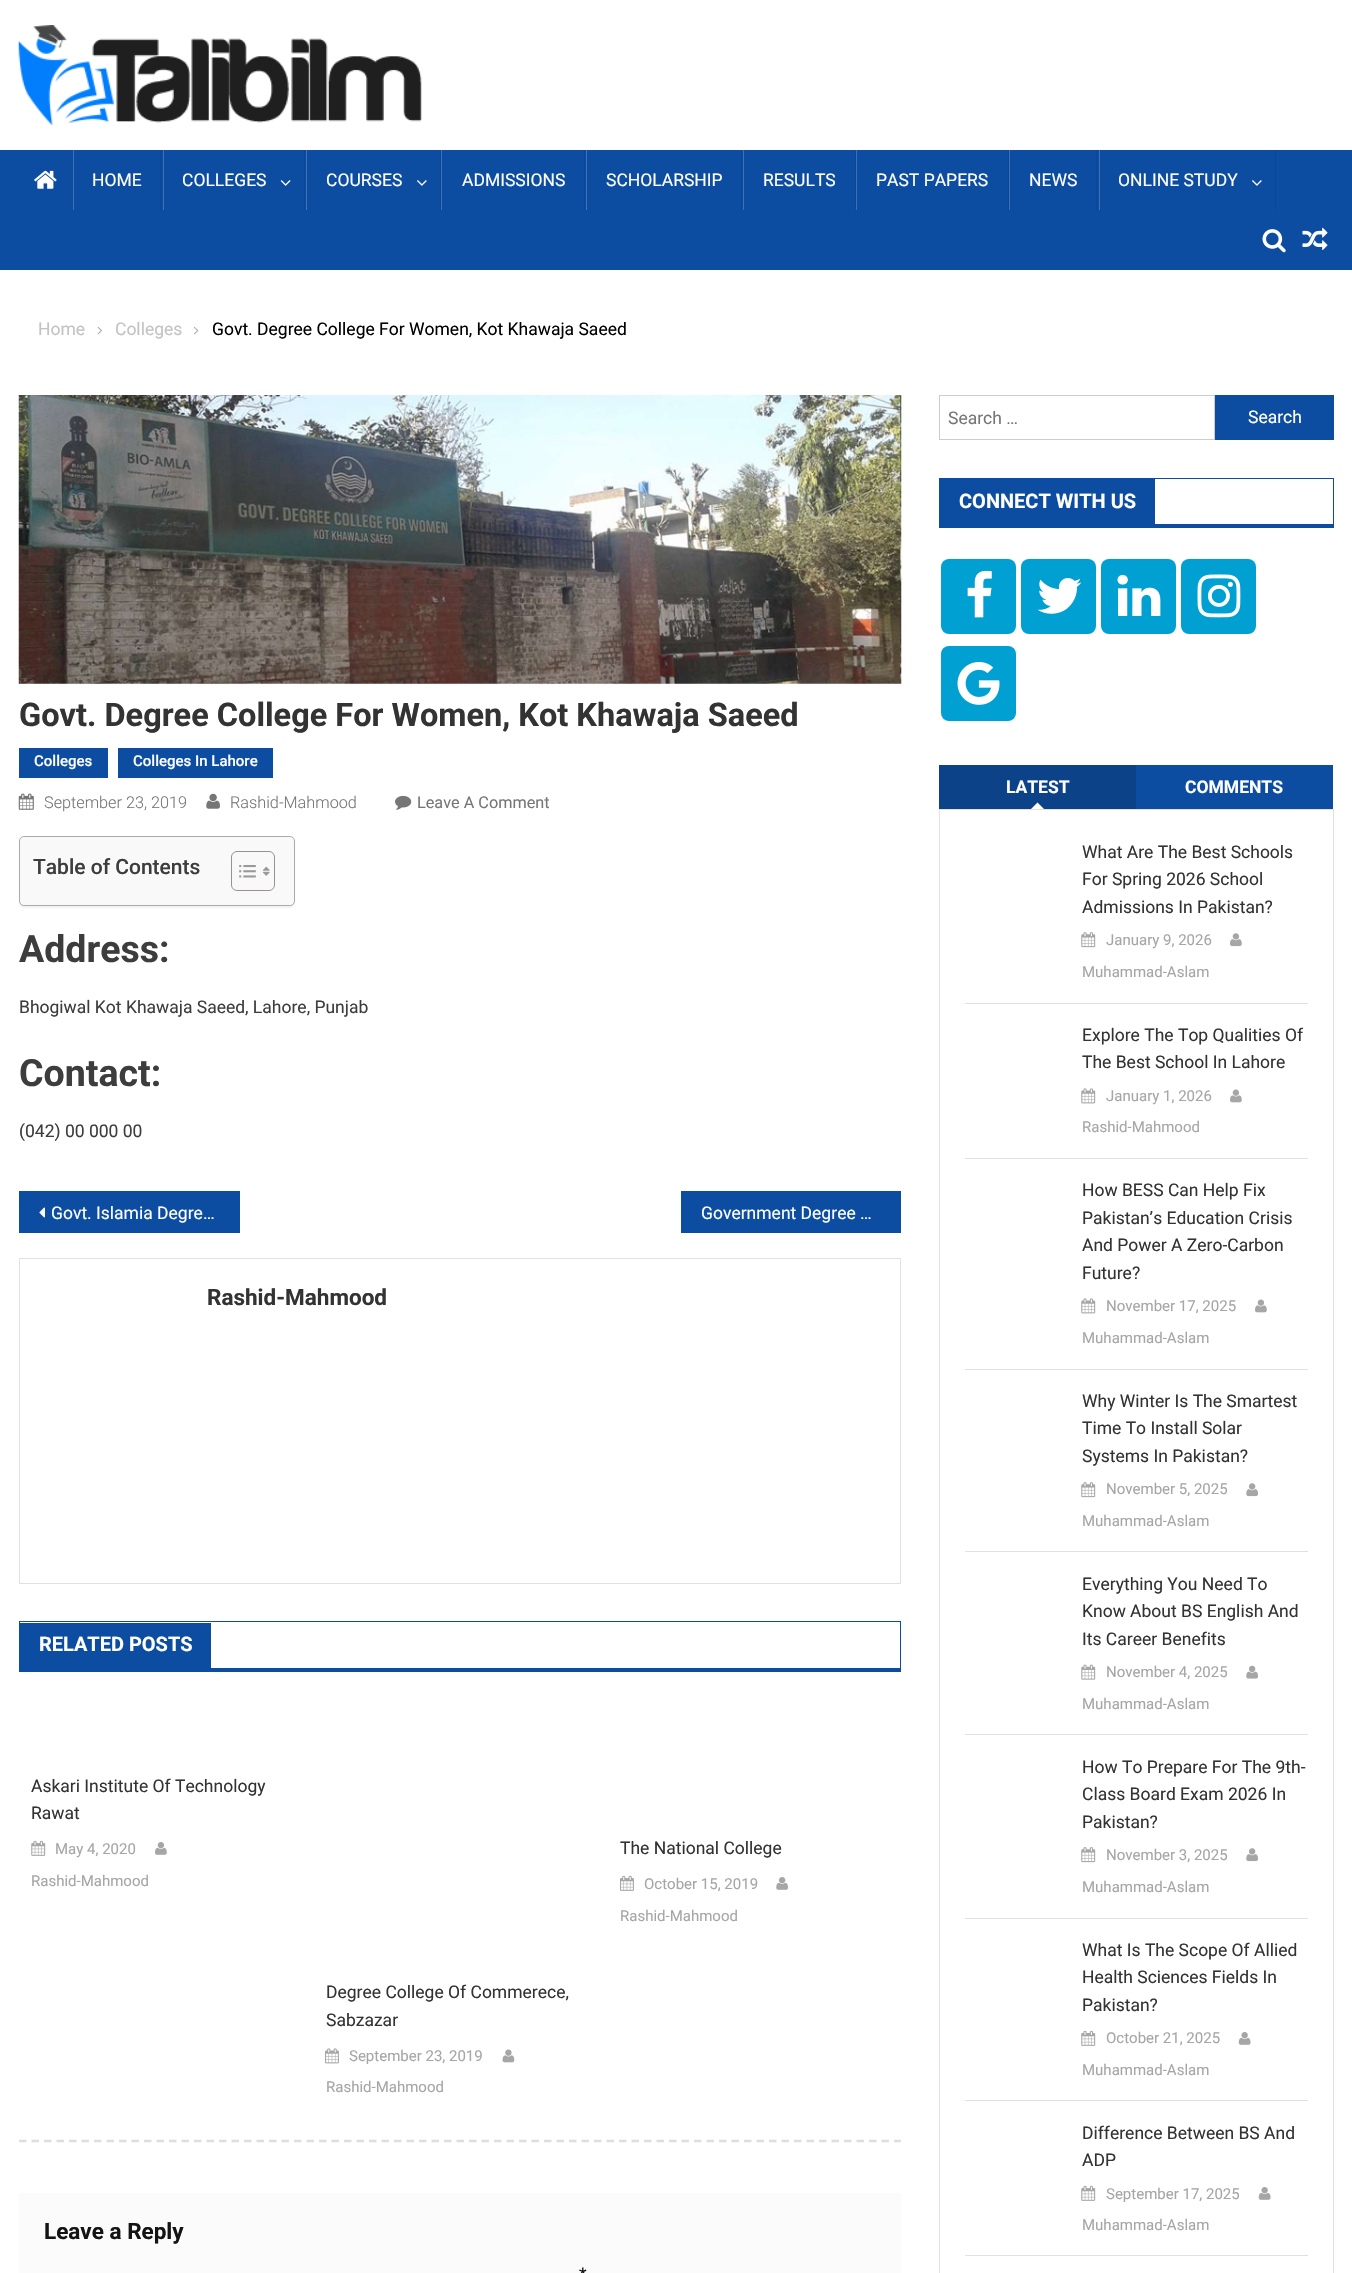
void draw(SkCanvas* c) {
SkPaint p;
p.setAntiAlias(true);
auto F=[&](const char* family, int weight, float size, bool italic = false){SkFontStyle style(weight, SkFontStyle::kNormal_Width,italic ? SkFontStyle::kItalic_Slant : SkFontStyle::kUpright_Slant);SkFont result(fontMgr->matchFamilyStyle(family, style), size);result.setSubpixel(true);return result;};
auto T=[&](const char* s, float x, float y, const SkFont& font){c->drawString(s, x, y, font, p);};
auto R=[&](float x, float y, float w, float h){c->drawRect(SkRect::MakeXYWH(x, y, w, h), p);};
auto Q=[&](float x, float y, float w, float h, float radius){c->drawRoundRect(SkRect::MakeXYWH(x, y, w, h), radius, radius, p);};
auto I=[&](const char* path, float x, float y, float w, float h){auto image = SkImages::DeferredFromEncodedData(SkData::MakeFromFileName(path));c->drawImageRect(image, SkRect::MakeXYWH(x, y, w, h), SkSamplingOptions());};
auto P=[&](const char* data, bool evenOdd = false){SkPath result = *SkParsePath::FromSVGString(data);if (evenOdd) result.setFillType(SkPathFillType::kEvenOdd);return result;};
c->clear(0xffffffff);
I("1.png",18,25,404,100);
p.setColor(0xff0c4da2);
R(0,150,1352,120);
I("2.png",34,170,23,19);
p.setColor(0xff0b4795);
R(160,150,1,60);
p.setColor(0xff3d71b5);
R(73,150,1,60);
auto f1 = F("Roboto",400,17.5);
p.setColor(0xffffffff);
T("HOME",92,186,f1);
p.setColor(0xff0b4795);
R(304,150,1,60);
p.setColor(0xff3d71b5);
R(163,150,1,60);
p.setColor(0xffffffff);
T("COLLEGES",182,186,f1);
I("3.png",280,180,11,6);
p.setColor(0xff0b4795);
R(440,150,1,60);
p.setColor(0xff3d71b5);
R(306,150,1,60);
p.setColor(0xffffffff);
T("COURSES",326,186,f1);
I("4.png",417,180,10,6);
p.setColor(0xff0b4795);
R(584,150,1,60);
p.setColor(0xff3d71b5);
R(441,150,1,60);
p.setColor(0xffffffff);
T("ADMISSIONS",462,186,f1);
p.setColor(0xff0b4795);
R(741,150,1,60);
p.setColor(0xff3d71b5);
R(586,150,1,60);
p.setColor(0xffffffff);
T("SCHOLARSHIP",606,186,f1);
p.setColor(0xff0b4795);
R(855,150,1,60);
p.setColor(0xff3d71b5);
R(743,150,1,60);
p.setColor(0xffffffff);
T("RESULTS",763,186,f1);
p.setColor(0xff0b4795);
R(1008,150,1,60);
p.setColor(0xff3d71b5);
R(856,150,1,60);
p.setColor(0xffffffff);
T("PAST PAPERS",876,186,f1);
p.setColor(0xff0b4795);
R(1096,150,1,60);
p.setColor(0xff3d71b5);
R(1009,150,1,60);
p.setColor(0xffffffff);
T("NEWS",1029,186,f1);
p.setColor(0xff0b4795);
R(1275,150,1,60);
p.setColor(0xff3d71b5);
R(1099,150,1,60);
p.setColor(0xffffffff);
T("ONLINE STUDY",1118,186,f1);
I("4.png",1252,180,10,6);
I("5.png",1262,229,24,24);
I("6.png",1302,227,26,23);
p.setColor(0xffc3c3c3);
T("Home",38,335,f1);
I("7.png",97,326,5,9);
T("Colleges",115,335,f1);
I("8.png",194,326,5,9);
p.setColor(0xff000000);
T("Govt. Degree College For Women, Kot Khawaja Saeed",212,335,f1);
I("9.png",18,395,884,289);
auto f2 = F("Roboto",700,32.5);
p.setColor(0xff333333);
T("Govt. Degree College For Women, Kot Khawaja Saeed",19,726,f2);
p.setColor(0xff0c4da2);
R(19,748,89,30);
auto f3 = F("Roboto",500,15);
p.setColor(0xffffffff);
T("Colleges",34,766,f3);
p.setColor(0xff0c4da2);
R(118,748,155,30);
p.setColor(0xffffffff);
T("Colleges In Lahore",133,766,f3);
I("10.png",18,793,16,17);
auto f4 = F("Roboto",300,16.25);
p.setColor(0xff767676);
T("September 23, 2019",44,808,f4);
I("11.png",206,793,14,16);
T("Rashid-Mahmood",230,808,f4);
I("12.png",395,795,17,15);
auto f5 = F("Roboto",400,16.25);
T("Leave A Comment",417,808,f5);
p.setColor(0x0d000000);
p.setMaskFilter(SkMaskFilter::MakeBlur(kNormal_SkBlurStyle, .5));
c->drawRoundRect(SkRect::MakeXYWH(19,838,276,70),5,5,p);
p.setMaskFilter(nullptr);
p.setColor(0xfff9f9f9);
c->drawRoundRect(SkRect::MakeXYWH(19.5,836.5,275,69),4.5,4.5,p);
p.setStroke(true);
p.setStrokeWidth(1);
p.setColor(0xffaaaaaa);
c->drawRoundRect(SkRect::MakeXYWH(19.5,836.5,275,69),4.5,4.5,p);
auto f6 = F("Roboto",500,21);
p.setStroke(false);
p.setColor(0xff3d3d3d);
T("Table of Contents",33,874,f6);
p.setStroke(true);
p.setColor(0xff999191);
c->drawRoundRect(SkRect::MakeXYWH(231.5,851.5,43,39),5.5,5.5,p);
I("13.png",239,865,17,13);
I("14.png",262,866,8,10);
auto f7 = F("Roboto",700,37.5);
p.setStroke(false);
p.setColor(0xff3d3d3d);
T("Address:",19,962,f7);
T("Bhogiwal Kot Khawaja Saeed, Lahore, Punjab",19,1013,f1);
T("Contact:",19,1086,f7);
T("(042) 00 000 00",19,1137,f1);
p.setColor(0xff0c4da2);
R(19,1191,221,42);
I("15.png",39,1207,6,11);
p.setColor(0xffffffff);
T("Govt. Islamia Degre…",51,1219,f1);
p.setColor(0xff0c4da2);
R(681,1191,220,42);
p.setColor(0xffffffff);
T("Government Degree …",701,1219,f1);
p.setStroke(true);
p.setColor(0xffe1e1e1);
c->drawRect(SkRect::MakeXYWH(19.5,1258.5,881,325),p);
auto f8 = F("Roboto",700,22.5);
p.setStroke(false);
p.setColor(0xff333333);
T("Rashid-Mahmood",207,1305,f8);
p.setColor(0xff0c4da2);
R(19,1621,882,1);
R(900,1621,1,50);
R(19,1668,882,4);
R(19,1621,1,50);
R(20,1623,191,45);
auto f9 = F("Roboto",700,20);
p.setColor(0xffffffff);
T("RELATED POSTS",39,1651,f9);
p.setColor(0xff333333);
T("Askari Institute Of Technology",31,1792,f1);
T("Rawat",31,1819,f1);
I("16.png",31,1840,15,16);
auto f10 = F("Roboto",400,15);
p.setColor(0xffa6a6a6);
T("May 4, 2020",55,1854,f10);
I("17.png",155,1842,12,13);
T("Rashid-Mahmood",31,1886,f10);
p.setColor(0xff333333);
T("The National College",620,1854,f1);
I("18.png",620,1875,14,16);
p.setColor(0xffa6a6a6);
T("October 15, 2019",644,1889,f10);
I("19.png",776,1877,12,13);
T("Rashid-Mahmood",620,1921,f10);
p.setColor(0xff333333);
T("Degree College Of Commerece,",326,1998,f1);
T("Sabzazar",326,2026,f1);
I("20.png",325,2048,14,16);
p.setColor(0xffa6a6a6);
T("September 23, 2019",349,2061,f10);
I("21.png",502,2049,13,14);
T("Rashid-Mahmood",326,2092,f10);
p.setStroke(true);
p.setStrokeWidth(2.5);
p.setColor(0xffdedede);
p.setPathEffect(SkDashPathEffect::Make({{7.5f,5}}, 0));
c->drawPath(P("M19 2141h882"),p);
p.setPathEffect(nullptr);
p.setStroke(false);
p.setColor(0xfffbfbfb);
R(19,2193,882,80);
p.setColor(0xff141414);
T("Leave a Reply",44,2239,f8);
T("*",579,2280,f1);
p.setStroke(true);
p.setStrokeWidth(1);
p.setColor(0xffcccccc);
c->drawRect(SkRect::MakeXYWH(939.5,395.5,275,44),p);
p.setStroke(false);
p.setColor(0xff767676);
T("Search …",948,424,f1);
p.setColor(0xff0c4da2);
R(1215,395,119,45);
p.setColor(0xffffffff);
T("Search",1248,423,f1);
p.setColor(0xff0c4da2);
R(939,478,395,1);
R(1333,478,1,50);
R(939,524,395,4);
R(939,478,1,50);
R(940,479,215,45);
p.setColor(0xffffffff);
T("CONNECT WITH US",959,508,f9);
p.setColor(0xff00a0d2);
Q(941,559,75,75,8);
I("22.png",967,570,25,48);
Q(1021,559,75,75,8);
I("23.png",1037,578,45,36);
Q(1101,559,75,75,8);
I("24.png",1117,575,44,41);
Q(1181,559,75,75,8);
I("25.png",1197,574,44,44);
Q(941,646,75,75,8);
I("26.png",957,662,43,43);
p.setColor(0xff0c4288);
R(939,765,197,44);
auto f11 = F("Roboto",700,17.5);
p.setColor(0xffffffff);
T("LATEST",1006,793,f11);
c->drawPath(P("M1044 809h-13l6.5-6.5z"),p);
p.setColor(0xff0c4da2);
R(1136,765,197,44);
p.setColor(0xffffffff);
T("COMMENTS",1185,793,f11);
p.setStroke(true);
p.setColor(0xffe1e1e1);
c->drawRect(SkRect::MakeXYWH(939.5,809.5,394,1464),p);
p.setStroke(false);
R(965,1003,343,1);
p.setColor(0xff333333);
T("What Are The Best Schools",1082,858,f1);
T("For Spring 2026 School",1082,885,f1);
T("Admissions In Pakistan?",1082,913,f1);
I("27.png",1081,932,15,16);
p.setColor(0xffa6a6a6);
T("January 9, 2026",1106,945,f10);
I("28.png",1230,933,12,14);
T("Muhammad-Aslam",1082,977,f10);
p.setColor(0xffe1e1e1);
R(965,1158,343,1);
p.setColor(0xff333333);
T("Explore The Top Qualities Of",1082,1041,f1);
T("The Best School In Lahore",1082,1068,f1);
I("29.png",1081,1088,15,16);
p.setColor(0xffa6a6a6);
T("January 1, 2026",1106,1101,f10);
I("30.png",1230,1089,12,14);
T("Rashid-Mahmood",1082,1132,f10);
p.setColor(0xffe1e1e1);
R(965,1369,343,1);
p.setColor(0xff333333);
T("How BESS Can Help Fix",1082,1196,f1);
T("Pakistan’s Education Crisis",1082,1224,f1);
T("And Power A Zero-Carbon",1082,1251,f1);
T("Future?",1082,1279,f1);
I("29.png",1081,1298,15,16);
p.setColor(0xffa6a6a6);
T("November 17, 2025",1106,1311,f10);
I("30.png",1255,1299,12,14);
T("Muhammad-Aslam",1082,1343,f10);
p.setColor(0xffe1e1e1);
R(965,1551,343,1);
p.setColor(0xff333333);
T("Why Winter Is The Smartest",1082,1407,f1);
T("Time To Install Solar",1082,1434,f1);
T("Systems In Pakistan?",1082,1462,f1);
I("27.png",1081,1482,15,16);
p.setColor(0xffa6a6a6);
T("November 5, 2025",1106,1494,f10);
I("31.png",1246,1483,12,14);
T("Muhammad-Aslam",1082,1526,f10);
p.setColor(0xffe1e1e1);
R(965,1734,343,1);
p.setColor(0xff333333);
T("Everything You Need To",1082,1590,f1);
T("Know About BS English And",1082,1617,f1);
T("Its Career Benefits",1082,1645,f1);
I("32.png",1081,1664,15,16);
p.setColor(0xffa6a6a6);
T("November 4, 2025",1106,1677,f10);
I("33.png",1246,1665,12,14);
T("Muhammad-Aslam",1082,1709,f10);
p.setColor(0xffe1e1e1);
R(965,1918,343,1);
p.setColor(0xff333333);
T("How To Prepare For The 9th-",1082,1773,f1);
T("Class Board Exam 2026 In",1082,1800,f1);
T("Pakistan?",1082,1828,f1);
I("27.png",1081,1847,15,16);
p.setColor(0xffa6a6a6);
T("November 3, 2025",1106,1860,f10);
I("31.png",1246,1848,12,14);
T("Muhammad-Aslam",1082,1892,f10);
p.setColor(0xffe1e1e1);
R(965,2100,343,1);
p.setColor(0xff333333);
T("What Is The Scope Of Allied",1082,1956,f1);
T("Health Sciences Fields In",1082,1983,f1);
T("Pakistan?",1082,2011,f1);
I("16.png",1081,2030,15,16);
p.setColor(0xffa6a6a6);
T("October 21, 2025",1106,2043,f10);
I("34.png",1238,2032,13,13);
T("Muhammad-Aslam",1082,2075,f10);
p.setColor(0xffe1e1e1);
R(965,2255,343,1);
p.setColor(0xff333333);
T("Difference Between BS And",1082,2139,f1);
T("ADP",1082,2166,f1);
I("16.png",1081,2185,15,16);
p.setColor(0xffa6a6a6);
T("September 17, 2025",1106,2199,f10);
I("34.png",1258,2187,13,13);
T("Muhammad-Aslam",1082,2230,f10);
}
